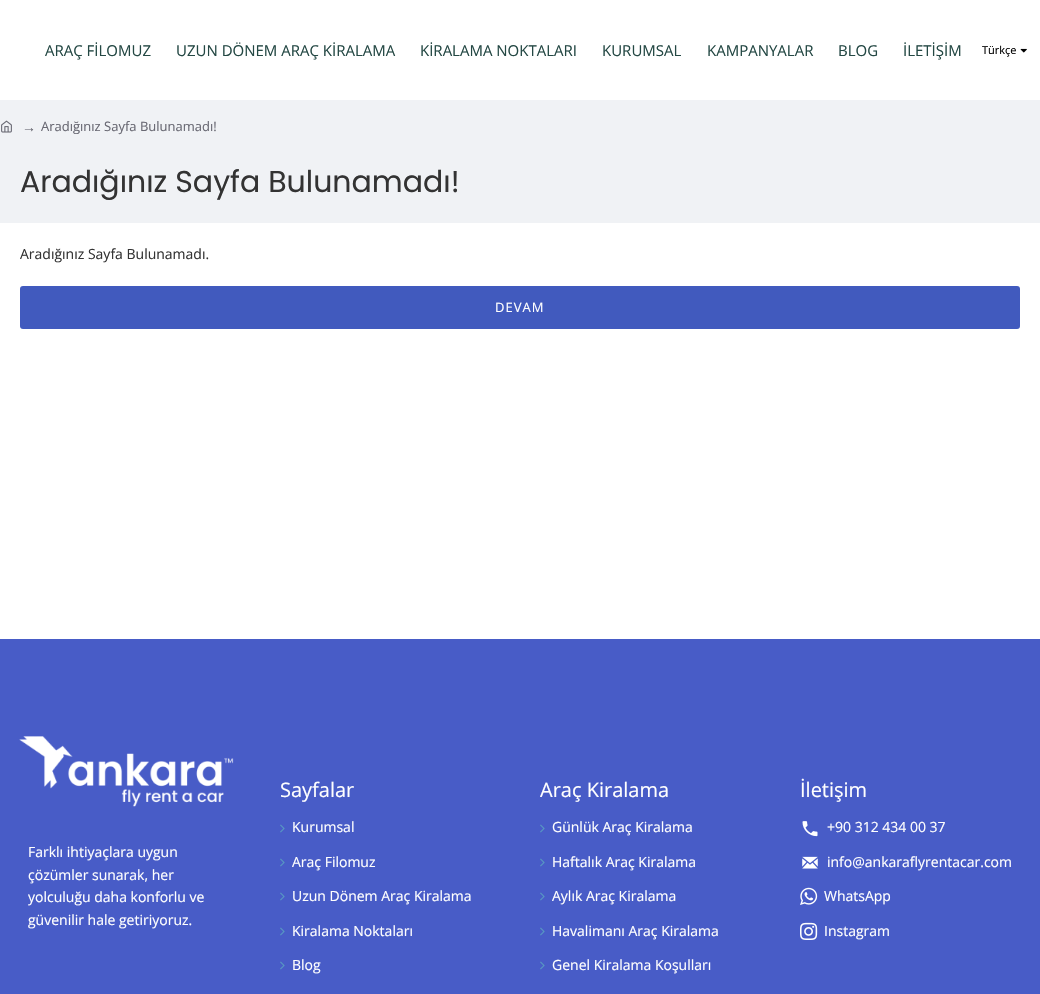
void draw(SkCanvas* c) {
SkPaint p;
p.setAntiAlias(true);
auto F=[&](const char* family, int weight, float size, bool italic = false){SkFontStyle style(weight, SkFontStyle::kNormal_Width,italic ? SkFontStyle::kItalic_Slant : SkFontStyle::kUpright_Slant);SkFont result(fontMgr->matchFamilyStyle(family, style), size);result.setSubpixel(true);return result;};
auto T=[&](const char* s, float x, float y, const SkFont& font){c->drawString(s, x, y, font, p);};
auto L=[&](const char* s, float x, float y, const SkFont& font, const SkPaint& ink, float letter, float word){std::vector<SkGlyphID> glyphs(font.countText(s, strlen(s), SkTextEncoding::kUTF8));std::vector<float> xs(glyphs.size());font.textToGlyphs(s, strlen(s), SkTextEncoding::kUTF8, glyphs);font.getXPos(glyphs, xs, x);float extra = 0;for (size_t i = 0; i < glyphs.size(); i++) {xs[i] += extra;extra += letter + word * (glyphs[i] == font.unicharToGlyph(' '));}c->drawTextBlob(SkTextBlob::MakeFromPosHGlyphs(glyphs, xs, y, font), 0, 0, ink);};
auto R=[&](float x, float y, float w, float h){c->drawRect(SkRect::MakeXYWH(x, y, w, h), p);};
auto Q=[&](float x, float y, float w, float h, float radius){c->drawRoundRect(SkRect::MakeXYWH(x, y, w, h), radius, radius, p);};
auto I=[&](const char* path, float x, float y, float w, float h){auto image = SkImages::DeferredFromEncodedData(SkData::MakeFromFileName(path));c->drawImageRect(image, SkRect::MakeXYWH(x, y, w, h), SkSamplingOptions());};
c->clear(0xffffffff);
auto f1 = F("Open Sans",400,15);
p.setColor(0xff244844);
T("ARAÇ FİLOMUZ",45,56,f1);
T("UZUN DÖNEM ARAÇ KİRALAMA",176,56,f1);
T("KİRALAMA NOKTALARI",420,56,f1);
T("KURUMSAL",602,56,f1);
T("KAMPANYALAR",707,56,f1);
T("BLOG",838,56,f1);
T("İLETİŞİM",903,56,f1);
auto f2 = F("Open Sans",400,11);
p.setColor(0xff000000);
T("Türkçe",982,54,f2);
I("1.png",1020,48,7,5);
p.setColor(0xfff0f2f5);
R(0,100,1040,123);
I("2.png",1,120,11,13);
auto f3 = F("Liberation Serif",400,14);
p.setColor(0xff696973);
T("→",22,132,f3);
auto f4 = F("Open Sans",400,13);
T("Aradığınız Sayfa Bulunamadı!",41,131,f4);
auto f5 = F("Poppins",400,30);
p.setColor(0xff333333);
T("Aradığınız Sayfa Bulunamadı!",20,192,f5);
auto f6 = F("Open Sans",400,14);
T("Aradığınız Sayfa Bulunamadı.",20,259,f6);
p.setColor(0xff415abe);
Q(20,286,1000,43,3);
p.setColor(0xffffffff);
L("DEVAM",495,312,f4,p,1,0);
p.setColor(0xff485cc7);
R(0,639,1040,355);
I("3.png",19,736,215,71);
p.setColor(0xffffffff);
T("Farklı ihtiyaçlara uygun",28,857,f6);
T("çözümler sunarak, her",28,880,f6);
T("yolculuğu daha konforlu ve",28,902,f6);
T("güvenilir hale getiriyoruz.",28,925,f6);
auto f7 = F("Open Sans",400,20);
T("Sayfalar",280,797,f7);
I("4.png",280,824,5,9);
T("Kurumsal",292,832,f6);
I("4.png",280,858,5,9);
T("Araç Filomuz",292,867,f6);
I("4.png",280,892,5,9);
T("Uzun Dönem Araç Kiralama",292,901,f6);
I("4.png",280,927,5,9);
T("Kiralama Noktaları",292,936,f6);
I("4.png",280,961,5,9);
T("Blog",292,970,f6);
T("Araç Kiralama",540,797,f7);
I("4.png",540,824,5,9);
T("Günlük Araç Kiralama",552,832,f6);
I("4.png",540,858,5,9);
T("Haftalık Araç Kiralama",552,867,f6);
I("4.png",540,892,5,9);
T("Aylık Araç Kiralama",552,901,f6);
I("4.png",540,927,5,9);
T("Havalimanı Araç Kiralama",552,936,f6);
I("4.png",540,961,5,9);
T("Genel Kiralama Koşulları",552,970,f6);
T("İletişim",800,797,f7);
I("5.png",802,821,16,16);
T("+90 312 434 00 37",827,832,f6);
I("6.png",802,856,16,13);
T("info@ankaraflyrentacar.com",827,867,f6);
I("7.png",800,887,18,18);
T("WhatsApp",824,901,f6);
I("8.png",800,922,18,18);
T("Instagram",824,936,f6);
}
